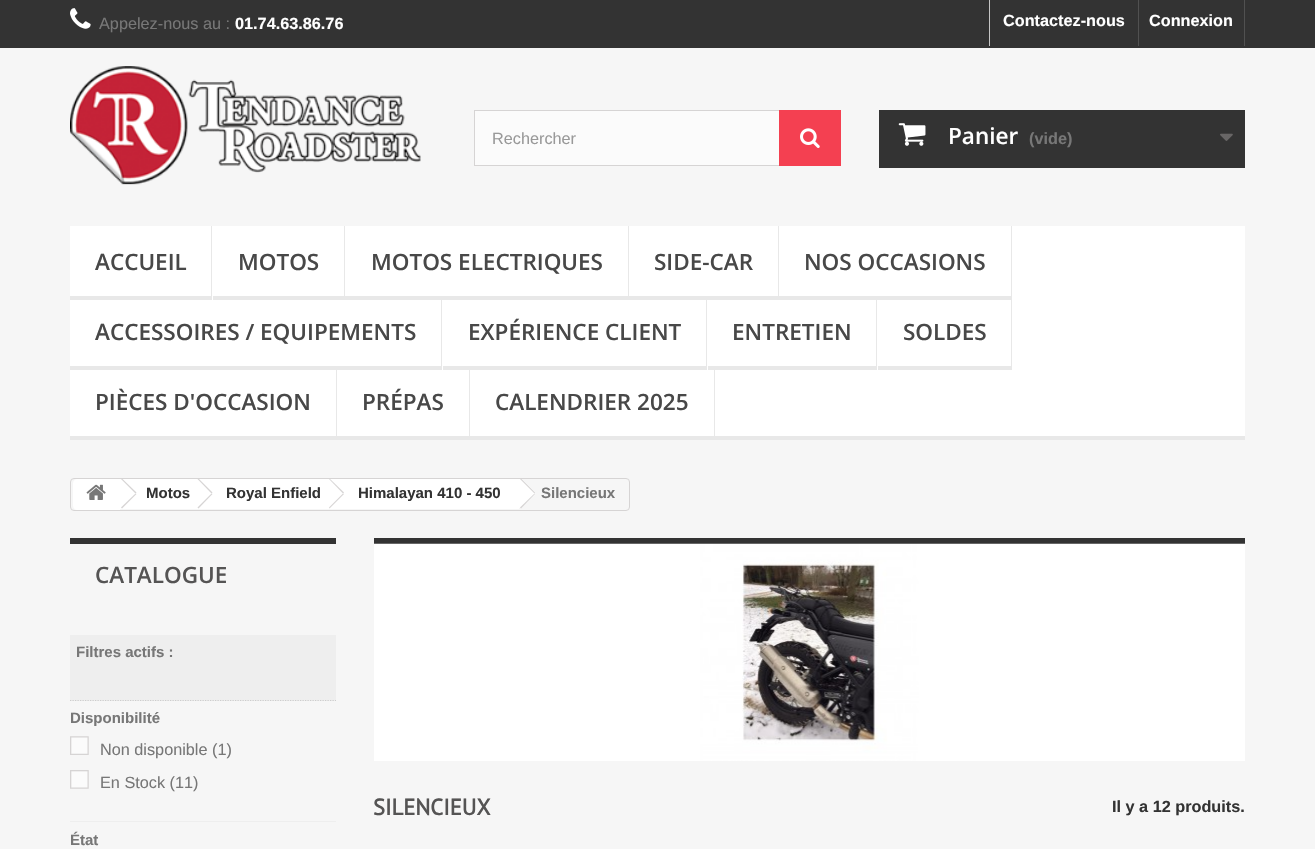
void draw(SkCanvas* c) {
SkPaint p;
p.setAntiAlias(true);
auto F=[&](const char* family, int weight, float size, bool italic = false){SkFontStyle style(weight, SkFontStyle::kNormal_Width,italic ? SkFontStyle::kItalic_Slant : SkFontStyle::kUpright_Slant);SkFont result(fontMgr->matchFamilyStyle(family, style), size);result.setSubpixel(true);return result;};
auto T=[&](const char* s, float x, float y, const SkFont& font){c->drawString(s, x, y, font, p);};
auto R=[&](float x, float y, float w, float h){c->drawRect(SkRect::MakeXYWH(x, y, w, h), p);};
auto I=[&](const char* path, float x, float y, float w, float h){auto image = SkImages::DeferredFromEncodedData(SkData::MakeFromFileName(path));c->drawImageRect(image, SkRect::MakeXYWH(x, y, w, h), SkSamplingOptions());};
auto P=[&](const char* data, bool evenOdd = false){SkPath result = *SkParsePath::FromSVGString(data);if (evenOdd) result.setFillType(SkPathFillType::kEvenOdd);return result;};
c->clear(0xfff6f6f6);
p.setColor(0xff333333);
R(0,0,1315,48);
I("1.png",70,8,21,21);
auto f1 = F("Liberation Sans",400,16.25);
p.setColor(0xff777777);
T("Appelez-nous au :",99,29,f1);
auto f2 = F("Liberation Sans",700,16.25);
p.setColor(0xffffffff);
T("01.74.63.86.76",235,29,f2);
p.setColor(0xffc6c6c6);
R(989,0,1,46);
p.setColor(0xffffffff);
T("Contactez-nous",1003,26,f2);
p.setColor(0xff515151);
R(1244,0,1,46);
R(1138,0,1,46);
p.setColor(0xffffffff);
T("Connexion",1149,26,f2);
I("2.png",70,66,351,119);
p.setColor(0xfffbfbfb);
R(475,111,304,54);
p.setStroke(true);
p.setStrokeWidth(1);
p.setColor(0xffd6d4d4);
c->drawRect(SkRect::MakeXYWH(474.5,110.5,366,55),p);
p.setStroke(false);
p.setColor(0xff999999);
T("Rechercher",492,144,f1);
p.setColor(0xfff44051);
R(779,110,62,56);
I("3.png",800,128,20,20);
p.setColor(0xff333333);
R(879,110,366,58);
I("4.png",898,123,28,23);
auto f3 = F("Open Sans",600,22.5);
p.setColor(0xffffffff);
T("Panier",948,144,f3);
p.setColor(0xff777777);
T("(vide)",1029,144,f2);
I("5.png",1220,133,13,8);
p.setColor(0xffffffff);
R(70,226,1175,210);
p.setColor(0xffe8e8e8);
R(70,436,1175,4);
R(211,226,1,74);
R(70,296,141,4);
p.setColor(0xff484848);
T("ACCUEIL",95,270,f3);
p.setColor(0xffe8e8e8);
R(344,226,1,74);
R(213,296,131,4);
p.setColor(0xff484848);
T("MOTOS",238,270,f3);
p.setColor(0xffe8e8e8);
R(628,226,1,74);
R(345,296,283,4);
p.setColor(0xff484848);
T("MOTOS ELECTRIQUES",371,270,f3);
p.setColor(0xffe8e8e8);
R(778,226,1,74);
R(629,296,149,4);
p.setColor(0xff484848);
T("SIDE-CAR",654,270,f3);
p.setColor(0xffe8e8e8);
R(1011,226,1,144);
R(779,296,232,4);
p.setColor(0xff484848);
T("NOS OCCASIONS",804,270,f3);
p.setColor(0xffe8e8e8);
R(441,296,1,74);
R(70,366,371,4);
p.setColor(0xff484848);
T("ACCESSOIRES / EQUIPEMENTS",95,340,f3);
p.setColor(0xffe8e8e8);
R(706,296,1,74);
R(443,366,263,4);
p.setColor(0xff484848);
T("EXPÉRIENCE CLIENT",468,340,f3);
p.setColor(0xffe8e8e8);
R(876,296,1,74);
R(708,366,168,4);
p.setColor(0xff484848);
T("ENTRETIEN",732,340,f3);
p.setColor(0xffe8e8e8);
R(878,366,133,4);
p.setColor(0xff484848);
T("SOLDES",903,340,f3);
p.setColor(0xffe8e8e8);
R(336,366,1,74);
p.setColor(0xff484848);
T("PIÈCES D'OCCASION",95,410,f3);
p.setColor(0xffe8e8e8);
R(469,366,1,74);
p.setColor(0xff484848);
T("PRÉPAS",362,410,f3);
p.setColor(0xffe8e8e8);
R(714,366,1,74);
p.setColor(0xff484848);
T("CALENDRIER 2025",495,410,f3);
p.setStroke(true);
p.setColor(0xffd6d4d4);
c->drawRoundRect(SkRect::MakeXYWH(70.5,478.5,559,32),3.5,3.5,p);
p.setStroke(false);
p.setColor(0xffffffff);
c->drawPath(P("M77 479h43v31h-43c-2 0-4-2-4-4v-23c0-2 2-4 4-4z"),p);
I("6.png",86,484,20,16);
R(120,479,79,30);
p.setColor(0xffd6d4d4);
c->drawPath(P("M122.5 479l14 13.5l-1 1l-14.5-14.5z"),p);
c->drawPath(P("M135.5 493.5l1 .5l-14.5 14.5l-1-1z"),p);
auto f4 = F("Liberation Sans",700,15);
p.setColor(0xff333333);
T("Motos",146,498,f4);
p.setColor(0xffffffff);
c->drawPath(P("M212 479h-3.5l-12.5 12.5c-1 1-1 2.5 0 3.5l12.5 12.5c.5 1 2.5 1 3.5 0l12-12.5c1-1 1-2.5 0-3.5z"),p);
R(199,479,131,30);
p.setColor(0xffd6d4d4);
c->drawPath(P("M199 479l13.5 13.5l-1 1l-14-14.5z"),p);
c->drawPath(P("M211.5 493.5l1 .5l-14 14.5l-1-1z"),p);
p.setColor(0xff333333);
T("Royal Enfield",226,498,f4);
p.setColor(0xffffffff);
c->drawPath(P("M343 479h-3.5l-12.5 12.5c-1 1-1 2.5 0 3.5l12.5 12.5c1 1 2.5 1 3.5 0l12.5-12.5c1-1 1-2.5 0-3.5z"),p);
R(330,479,189,30);
p.setColor(0xffd6d4d4);
c->drawPath(P("M329.5 478.5l14.5 14l-1 1l-14-14.5z"),p);
c->drawPath(P("M343 493.5l1 .5l-14.5 14.5l-.5-1z"),p);
p.setColor(0xff333333);
T("Himalayan 410 - 450",358,498,f4);
p.setColor(0xffffffff);
c->drawPath(P("M522 479h-3.5l-12.5 12.5c-1 1-1 2.5 0 3.5l12.5 12.5c1 1 2.5 1 3.5 0l12.5-12.5c1-1 1-2.5 0-3.5z"),p);
p.setColor(0xffd6d4d4);
c->drawPath(P("M521.5 479l13.5 13.5l-.5 1l-14.5-14.5z"),p);
c->drawPath(P("M534.5 493.5l.5 .5l-14 14.5l-1-1z"),p);
p.setColor(0xff777777);
T("Silencieux",541,498,f4);
p.setColor(0xff333333);
R(70,538,266,6);
p.setColor(0xff555454);
T("CATALOGUE",95,583,f3);
p.setColor(0xffeeeeee);
R(70,635,266,66);
p.setStroke(true);
p.setStrokeWidth(1.2);
p.setColor(0xffcccccc);
p.setPathEffect(SkDashPathEffect::Make({{1.25f,1.25f}}, 0));
c->drawPath(P("M70 700.5h266"),p);
p.setPathEffect(nullptr);
p.setStroke(false);
p.setColor(0xff777777);
T("Filtres actifs :",76,657,f4);
p.setColor(0xffeeeeee);
R(70,821,266,1);
p.setColor(0xff777777);
T("Disponibilité",70,723,f4);
I("7.png",70,736,19,19);
T("Non disponible (1)",100,755,f1);
I("8.png",70,770,19,19);
T("En Stock (11)",100,788,f1);
T("État",70,845,f4);
p.setColor(0xff333333);
R(374,538,871,6);
I("9.png",374,543,871,218);
auto f5 = F("PT Sans",700,22.5);
p.setColor(0xff555454);
T("SILENCIEUX",373,815,f5);
p.setColor(0xff333333);
T("Il y a 12 produits.",1112,812,f2);
}
